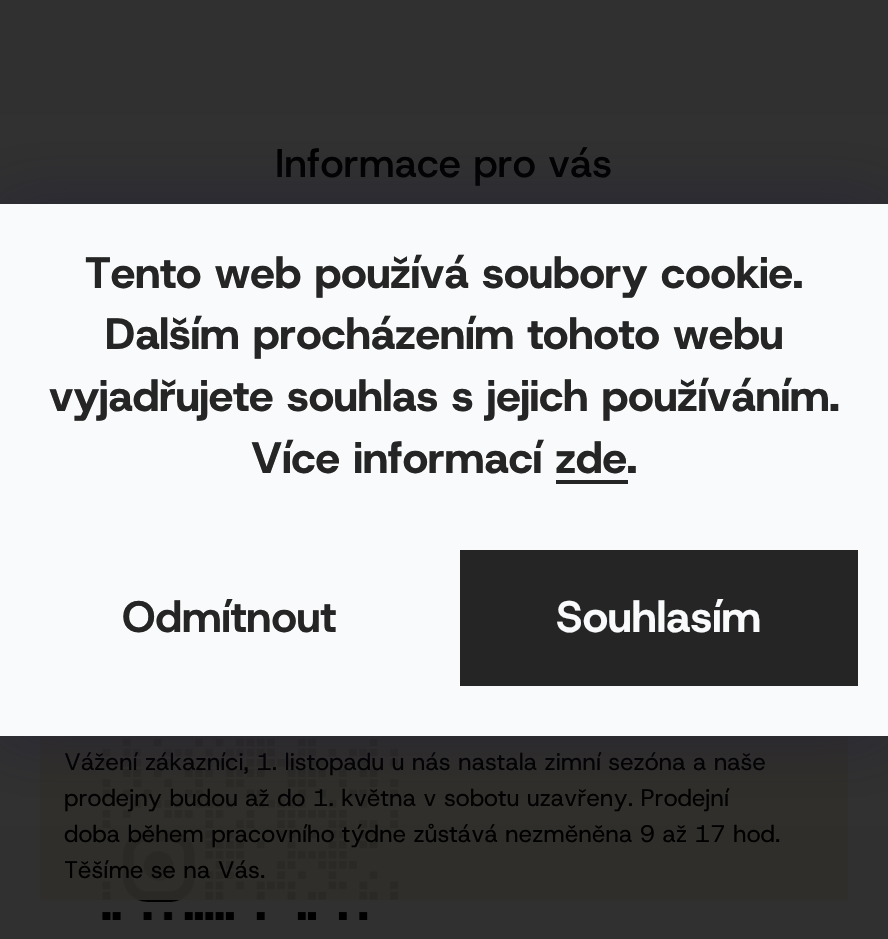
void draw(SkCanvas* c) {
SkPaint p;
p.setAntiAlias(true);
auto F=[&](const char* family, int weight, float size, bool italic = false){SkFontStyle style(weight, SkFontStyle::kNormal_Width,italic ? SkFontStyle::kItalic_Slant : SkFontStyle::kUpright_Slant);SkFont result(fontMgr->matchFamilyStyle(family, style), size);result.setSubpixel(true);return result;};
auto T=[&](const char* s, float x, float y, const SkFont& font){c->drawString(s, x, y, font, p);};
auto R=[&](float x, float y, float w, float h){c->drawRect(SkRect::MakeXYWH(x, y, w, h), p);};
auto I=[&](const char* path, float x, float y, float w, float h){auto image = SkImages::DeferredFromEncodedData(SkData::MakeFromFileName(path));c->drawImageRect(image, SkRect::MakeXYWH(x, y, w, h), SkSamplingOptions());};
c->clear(0xff303030);
auto f1 = F("Host Grotesk",500,40);
p.setColor(0xff000000);
T("Informace pro vás",275,177,f1);
I("1.png",102,738,296,182);
p.setColor(0xe6302e29);
R(40,736,808,164);
auto f2 = F("Host Grotesk",400,24);
p.setColor(0xff000000);
T("Vážení zákazníci, 1. listopadu u nás nastala zimní sezóna a naše",64,770,f2);
T("prodejny budou až do 1. května v sobotu uzavřeny. Prodejní",64,806,f2);
T("doba během pracovního týdne zůstává nezměněna 9 až 17 hod.",64,842,f2);
T("Těšíme se na Vás.",64,878,f2);
p.setColor(0x801b1939);
p.setMaskFilter(SkMaskFilter::MakeBlur(kNormal_SkBlurStyle, 30));
c->drawRect(SkRect::MakeXYWH(0,204,888,532),p);
p.setMaskFilter(nullptr);
p.setColor(0xfff8fafb);
R(0,204,888,532);
auto f3 = F("Host Grotesk",800,44);
p.setColor(0xff252525);
T("Tento web používá soubory cookie.",85,288,f3);
T("Dalším procházením tohoto webu",105,349,f3);
T("vyjadřujete souhlas s jejich používáním.",49,411,f3);
T("Více informací zde.",251,473,f3);
R(556,480,72,4);
auto f4 = F("Host Grotesk",700,44);
T("Odmítnout",122,632,f4);
R(460,550,398,136);
p.setColor(0xfff8fafb);
T("Souhlasím",556,632,f4);
}
